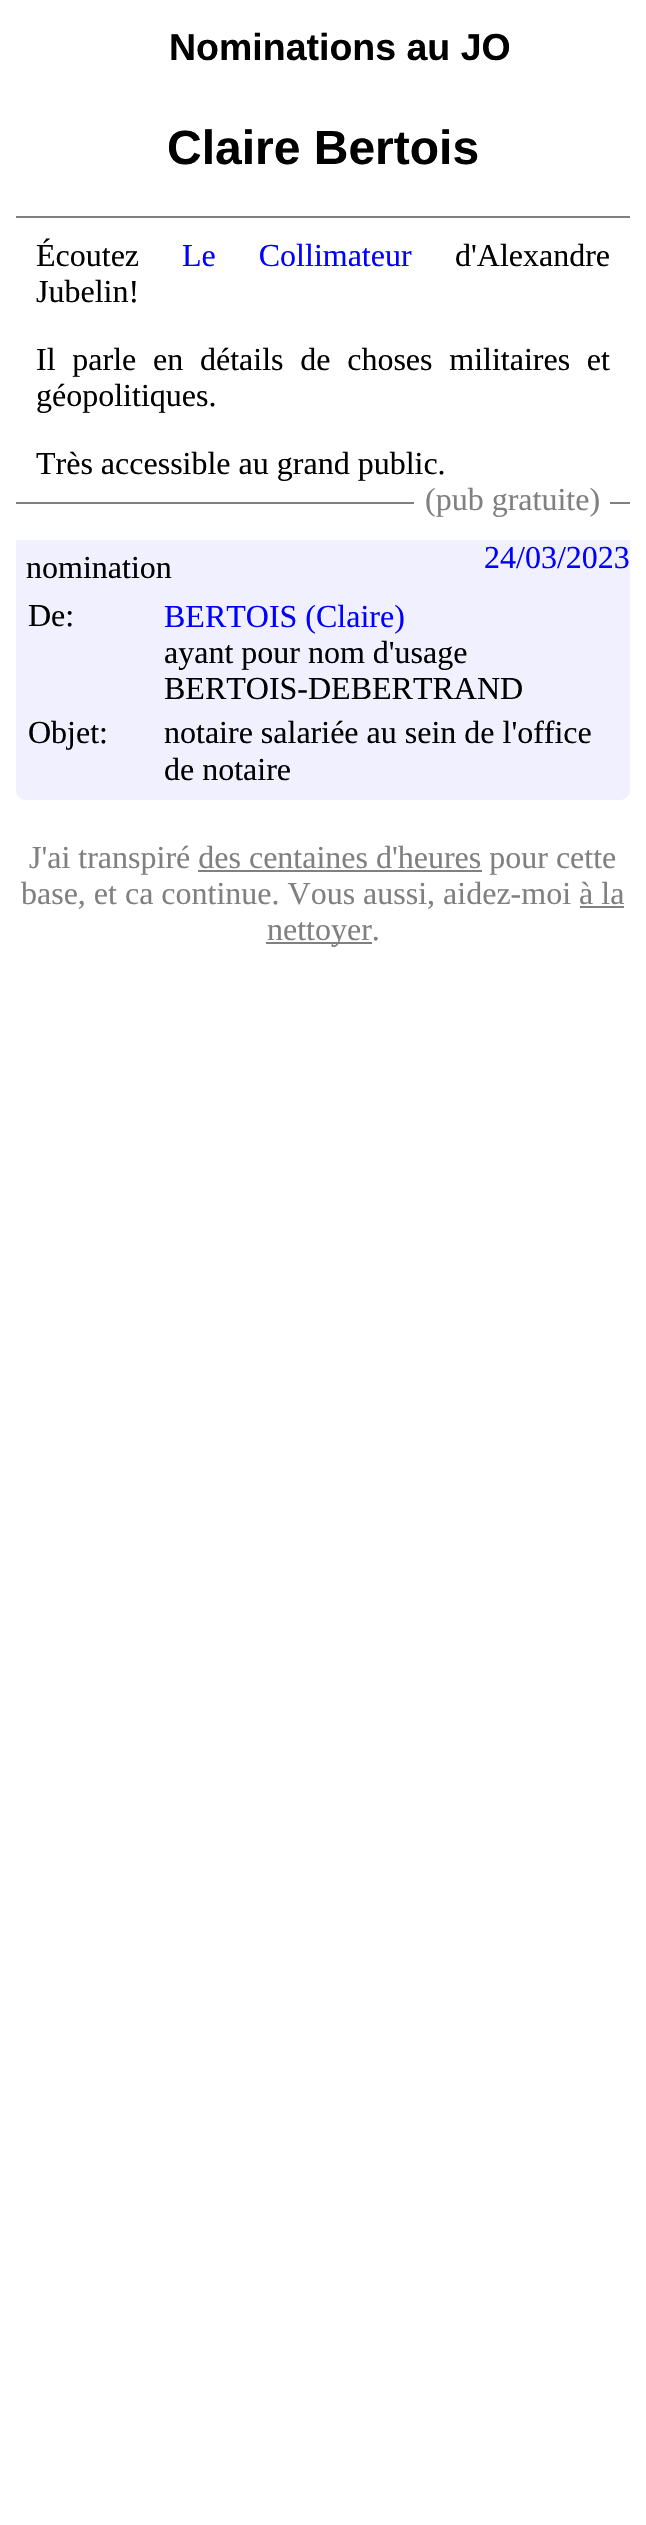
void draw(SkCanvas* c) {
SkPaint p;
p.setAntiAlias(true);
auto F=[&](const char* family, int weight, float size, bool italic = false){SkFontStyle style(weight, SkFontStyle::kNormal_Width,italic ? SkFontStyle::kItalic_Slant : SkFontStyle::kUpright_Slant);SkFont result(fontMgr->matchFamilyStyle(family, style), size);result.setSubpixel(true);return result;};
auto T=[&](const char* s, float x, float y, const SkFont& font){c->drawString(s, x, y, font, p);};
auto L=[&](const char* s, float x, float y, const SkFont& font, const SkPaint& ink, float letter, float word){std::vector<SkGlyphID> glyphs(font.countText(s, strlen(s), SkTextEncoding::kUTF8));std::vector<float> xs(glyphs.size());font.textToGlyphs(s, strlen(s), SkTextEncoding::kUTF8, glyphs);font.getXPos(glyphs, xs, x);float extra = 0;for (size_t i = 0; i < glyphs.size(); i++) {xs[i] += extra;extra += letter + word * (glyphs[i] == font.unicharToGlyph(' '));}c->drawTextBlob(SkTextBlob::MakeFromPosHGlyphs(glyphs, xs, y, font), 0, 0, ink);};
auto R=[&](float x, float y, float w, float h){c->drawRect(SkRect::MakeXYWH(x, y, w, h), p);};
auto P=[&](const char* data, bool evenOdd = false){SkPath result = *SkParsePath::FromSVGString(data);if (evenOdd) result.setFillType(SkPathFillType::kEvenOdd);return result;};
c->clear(0xffffffff);
auto f1 = F("Liberation Sans",700,37.5);
p.setColor(0xff000000);
T("Nominations au JO",169,60,f1);
auto f2 = F("Liberation Sans",700,48);
T("Claire Bertois",167,164,f2);
p.setColor(0xff808080);
R(16,216,614,2);
R(16,502,614,2);
auto f3 = F("Liberation Serif",400,32);
p.setColor(0xff000000);
T("Écoutez",36,266,f3);
p.setColor(0xff0000ff);
L("Le Collimateur",182,266,f3,p,0,35);
p.setColor(0xff000000);
T("d'Alexandre",455,266,f3);
T("Jubelin!",36,302,f3);
L("Il parle en détails de choses militaires et",36,370,f3,p,0,8.75);
T("géopolitiques.",36,406,f3);
T("Très accessible au grand public.",36,474,f3);
p.setColor(0xffffffff);
R(414,502,196,2);
p.setColor(0xff808080);
T("(pub gratuite)",425,510,f3);
p.setColor(0xfff0f0ff);
c->drawPath(P("M16 540h614v250c0 5.5-4.5 10-10 10h-594c-5.5 0-10-4.5-10-10z"),p);
p.setColor(0xff000000);
T("nomination",26,578,f3);
p.setColor(0xff0000ff);
T("24/03/2023",484,568,f3);
p.setColor(0xff000000);
T("De:",28,626,f3);
p.setColor(0xff0000ff);
T("BERTOIS (Claire)",164,627,f3);
p.setColor(0xff000000);
T("ayant pour nom d'usage",164,663,f3);
T("BERTOIS-DEBERTRAND",164,699,f3);
T("Objet:",28,743,f3);
T("notaire salariée au sein de l'office",164,743,f3);
T("de notaire",164,780,f3);
p.setColor(0xff808080);
T("J'ai transpiré des centaines d'heures pour cette",29,868,f3);
R(198,870,284,2);
T("base, et ca continue. Vous aussi, aidez-moi à la",21,904,f3);
R(266,942,106,2);
T("nettoyer.",267,940,f3);
R(580,906,44,2);
}
